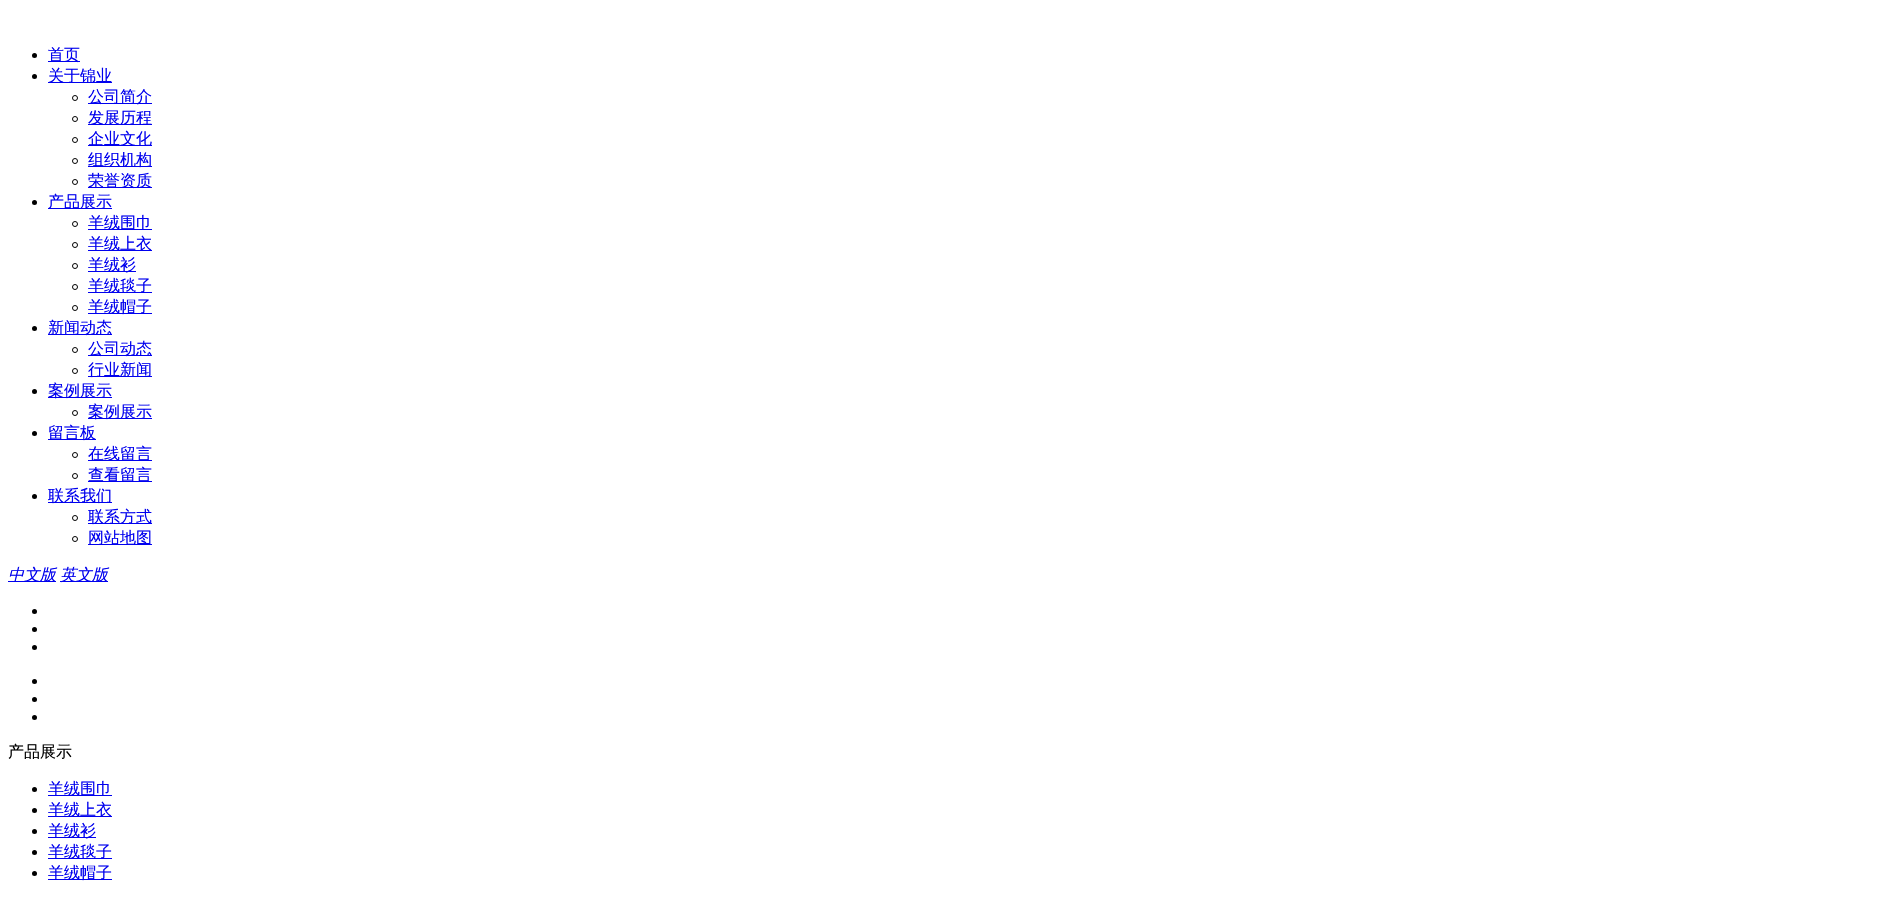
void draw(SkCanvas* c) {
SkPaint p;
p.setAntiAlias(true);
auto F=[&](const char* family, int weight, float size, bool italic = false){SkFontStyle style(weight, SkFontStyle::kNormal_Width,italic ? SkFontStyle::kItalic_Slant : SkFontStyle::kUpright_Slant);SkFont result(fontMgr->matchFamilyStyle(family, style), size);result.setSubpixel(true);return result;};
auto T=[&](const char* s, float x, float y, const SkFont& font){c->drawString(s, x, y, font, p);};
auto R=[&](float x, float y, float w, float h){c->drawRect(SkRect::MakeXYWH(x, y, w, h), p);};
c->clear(0xffffffff);
p.setColor(0xff000000);
c->drawCircle(34.5,55.5,2.5,p);
p.setColor(0xff0000ee);
R(48,61,32,1);
auto f1 = F("WenQuanYi Zen Hei",500,16);
T("首页",48,60,f1);
p.setColor(0xff000000);
c->drawCircle(34.5,76.5,2.5,p);
p.setColor(0xff0000ee);
R(48,82,64,1);
T("关于锦业",48,81,f1);
p.setStroke(true);
p.setStrokeWidth(1);
p.setColor(0xff000000);
c->drawCircle(75,98,2.5,p);
p.setStroke(false);
p.setColor(0xff0000ee);
R(88,103,64,1);
T("公司简介",88,102,f1);
p.setStroke(true);
p.setColor(0xff000000);
c->drawCircle(75,119,2.5,p);
p.setStroke(false);
p.setColor(0xff0000ee);
R(88,124,64,1);
T("发展历程",88,123,f1);
p.setStroke(true);
p.setColor(0xff000000);
c->drawCircle(75,140,2.5,p);
p.setStroke(false);
p.setColor(0xff0000ee);
R(88,145,64,1);
T("企业文化",88,144,f1);
p.setStroke(true);
p.setColor(0xff000000);
c->drawCircle(75,161,2.5,p);
p.setStroke(false);
p.setColor(0xff0000ee);
R(88,166,64,1);
T("组织机构",88,165,f1);
p.setStroke(true);
p.setColor(0xff000000);
c->drawCircle(75,182,2.5,p);
p.setStroke(false);
p.setColor(0xff0000ee);
R(88,187,64,1);
T("荣誉资质",88,186,f1);
p.setColor(0xff000000);
c->drawCircle(34.5,202.5,2.5,p);
p.setColor(0xff0000ee);
R(48,208,64,1);
T("产品展示",48,207,f1);
p.setStroke(true);
p.setColor(0xff000000);
c->drawCircle(75,224,2.5,p);
p.setStroke(false);
p.setColor(0xff0000ee);
R(88,229,64,1);
T("羊绒围巾",88,228,f1);
p.setStroke(true);
p.setColor(0xff000000);
c->drawCircle(75,245,2.5,p);
p.setStroke(false);
p.setColor(0xff0000ee);
R(88,250,64,1);
T("羊绒上衣",88,249,f1);
p.setStroke(true);
p.setColor(0xff000000);
c->drawCircle(75,266,2.5,p);
p.setStroke(false);
p.setColor(0xff0000ee);
R(88,271,48,1);
T("羊绒衫",88,270,f1);
p.setStroke(true);
p.setColor(0xff000000);
c->drawCircle(75,287,2.5,p);
p.setStroke(false);
p.setColor(0xff0000ee);
R(88,292,64,1);
T("羊绒毯子",88,291,f1);
p.setStroke(true);
p.setColor(0xff000000);
c->drawCircle(75,308,2.5,p);
p.setStroke(false);
p.setColor(0xff0000ee);
R(88,313,64,1);
T("羊绒帽子",88,312,f1);
p.setColor(0xff000000);
c->drawCircle(34.5,328.5,2.5,p);
p.setColor(0xff0000ee);
R(48,334,64,1);
T("新闻动态",48,333,f1);
p.setStroke(true);
p.setColor(0xff000000);
c->drawCircle(75,350,2.5,p);
p.setStroke(false);
p.setColor(0xff0000ee);
R(88,355,64,1);
T("公司动态",88,354,f1);
p.setStroke(true);
p.setColor(0xff000000);
c->drawCircle(75,371,2.5,p);
p.setStroke(false);
p.setColor(0xff0000ee);
R(88,376,64,1);
T("行业新闻",88,375,f1);
p.setColor(0xff000000);
c->drawCircle(34.5,391.5,2.5,p);
p.setColor(0xff0000ee);
R(48,397,64,1);
T("案例展示",48,396,f1);
p.setStroke(true);
p.setColor(0xff000000);
c->drawCircle(75,413,2.5,p);
p.setStroke(false);
p.setColor(0xff0000ee);
R(88,418,64,1);
T("案例展示",88,417,f1);
p.setColor(0xff000000);
c->drawCircle(34.5,433.5,2.5,p);
p.setColor(0xff0000ee);
R(48,439,48,1);
T("留言板",48,438,f1);
p.setStroke(true);
p.setColor(0xff000000);
c->drawCircle(75,455,2.5,p);
p.setStroke(false);
p.setColor(0xff0000ee);
R(88,460,64,1);
T("在线留言",88,459,f1);
p.setStroke(true);
p.setColor(0xff000000);
c->drawCircle(75,476,2.5,p);
p.setStroke(false);
p.setColor(0xff0000ee);
R(88,481,64,1);
T("查看留言",88,480,f1);
p.setColor(0xff000000);
c->drawCircle(34.5,496.5,2.5,p);
p.setColor(0xff0000ee);
R(48,502,64,1);
T("联系我们",48,501,f1);
p.setStroke(true);
p.setColor(0xff000000);
c->drawCircle(75,518,2.5,p);
p.setStroke(false);
p.setColor(0xff0000ee);
R(88,523,64,1);
T("联系方式",88,522,f1);
p.setStroke(true);
p.setColor(0xff000000);
c->drawCircle(75,539,2.5,p);
p.setStroke(false);
p.setColor(0xff0000ee);
R(88,544,64,1);
T("网站地图",88,543,f1);
R(8,581,48,1);
auto f2 = F("WenQuanYi Zen Hei",500,16,true);
T("中文版",8,580,f2);
R(60,581,48,1);
T("英文版",60,580,f2);
p.setColor(0xff000000);
c->drawCircle(34.5,611.5,2.5,p);
c->drawCircle(34.5,629.5,2.5,p);
c->drawCircle(34.5,647.5,2.5,p);
c->drawCircle(34.5,681.5,2.5,p);
c->drawCircle(34.5,699.5,2.5,p);
c->drawCircle(34.5,717.5,2.5,p);
T("产品展示",8,757,f1);
c->drawCircle(34.5,789.5,2.5,p);
p.setColor(0xff0000ee);
R(48,795,64,1);
T("羊绒围巾",48,794,f1);
p.setColor(0xff000000);
c->drawCircle(34.5,810.5,2.5,p);
p.setColor(0xff0000ee);
R(48,816,64,1);
T("羊绒上衣",48,815,f1);
p.setColor(0xff000000);
c->drawCircle(34.5,831.5,2.5,p);
p.setColor(0xff0000ee);
R(48,837,48,1);
T("羊绒衫",48,836,f1);
p.setColor(0xff000000);
c->drawCircle(34.5,852.5,2.5,p);
p.setColor(0xff0000ee);
R(48,858,64,1);
T("羊绒毯子",48,857,f1);
p.setColor(0xff000000);
c->drawCircle(34.5,873.5,2.5,p);
p.setColor(0xff0000ee);
R(48,879,64,1);
T("羊绒帽子",48,878,f1);
}
